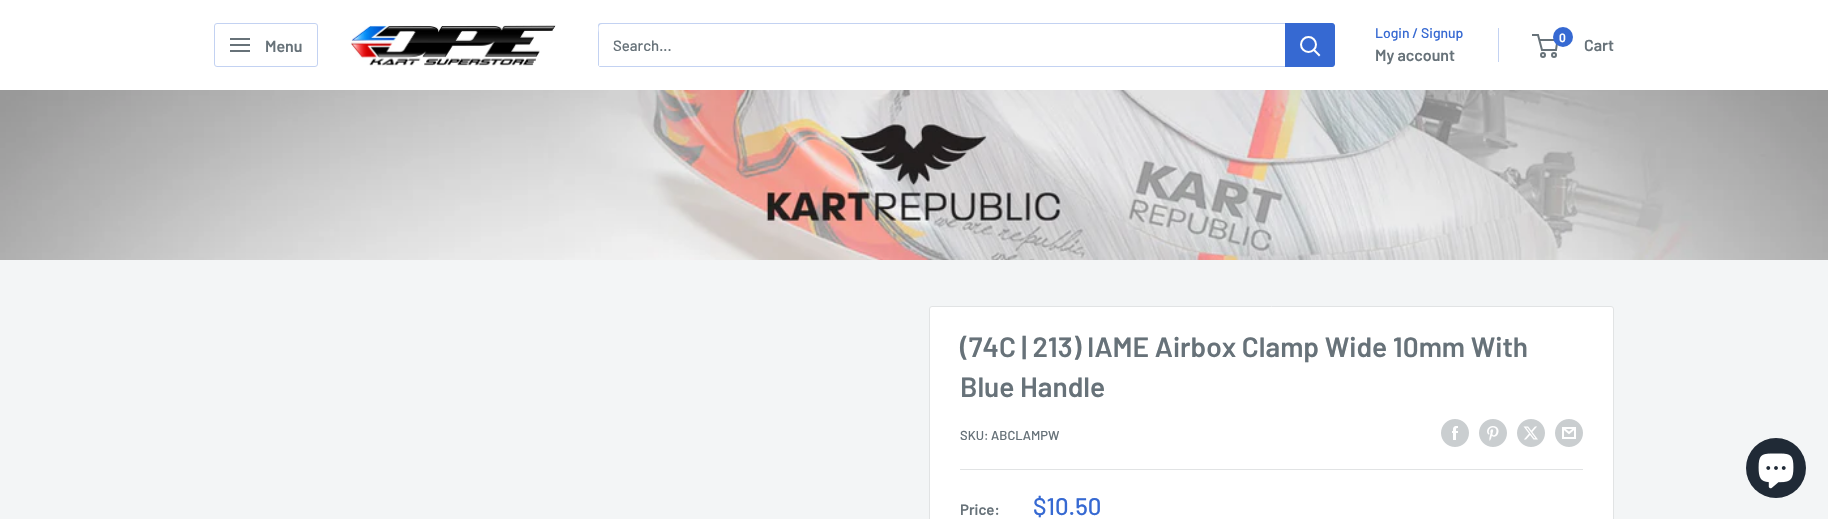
void draw(SkCanvas* c) {
SkPaint p;
p.setAntiAlias(true);
auto F=[&](const char* family, int weight, float size, bool italic = false){SkFontStyle style(weight, SkFontStyle::kNormal_Width,italic ? SkFontStyle::kItalic_Slant : SkFontStyle::kUpright_Slant);SkFont result(fontMgr->matchFamilyStyle(family, style), size);result.setSubpixel(true);return result;};
auto T=[&](const char* s, float x, float y, const SkFont& font){c->drawString(s, x, y, font, p);};
auto R=[&](float x, float y, float w, float h){c->drawRect(SkRect::MakeXYWH(x, y, w, h), p);};
auto I=[&](const char* path, float x, float y, float w, float h){auto image = SkImages::DeferredFromEncodedData(SkData::MakeFromFileName(path));c->drawImageRect(image, SkRect::MakeXYWH(x, y, w, h), SkSamplingOptions());};
auto P=[&](const char* data, bool evenOdd = false){SkPath result = *SkParsePath::FromSVGString(data);if (evenOdd) result.setFillType(SkPathFillType::kEvenOdd);return result;};
c->clear(0xfff3f5f6);
p.setColor(0xffffffff);
R(0,0,1828,90);
p.setStroke(true);
p.setStrokeWidth(1);
p.setColor(0xffc3d2f2);
c->drawRoundRect(SkRect::MakeXYWH(214.5,23.5,103,43),2.5,2.5,p);
I("1.png",230,38,20,14);
auto f1 = F("Barlow",600,16);
p.setStroke(false);
p.setColor(0xff677279);
T("Menu",265,52,f1);
I("2.png",350,25,206,41);
p.setColor(0xffc3d2f2);
c->drawPath(P("M599 66c0 1 1 1 2 1h731c2 0 3-1 3-3v-38c0-1 0-2-1-2v33c0 2 2 9-3 9z"),p);
c->drawPath(P("M602 24h732c0-1-1-1-2-1h-731c-2 0-3 1-3 3v38c0 1 0 2 1 2v-33c0-2-2-9 3-9z"),p);
auto f2 = F("Barlow",500,15);
p.setColor(0xff677279);
T("Search...",613,51,f2);
p.setColor(0xff3669d2);
c->drawPath(P("M1285 23h47c1.5 0 3 1.5 3 3v38c0 1.5-1.5 3-3 3h-47z"),p);
p.setStroke(true);
p.setStrokeWidth(2);
p.setStrokeCap(SkPaint::kSquare_Cap);
p.setColor(0xffffffff);
c->drawPath(P("M1319 55l-5-5"),p);
p.setStrokeCap(SkPaint::kButt_Cap);
c->drawCircle(1308.5,44.5,7.5,p);
auto f3 = F("Barlow",500,14);
p.setStroke(false);
p.setColor(0xff3669d2);
T("Login / Signup",1375,38,f3);
p.setColor(0xffc3d2f2);
R(1498,28,1,34);
p.setColor(0xff677279);
T("My account",1375,61,f1);
p.setStroke(true);
c->drawCircle(1543,55,2,p);
c->drawCircle(1554,55,2,p);
c->drawPath(P("M1539.5 40h18l-1.5 10h-14l-4-15h-6"),p);
p.setStroke(false);
p.setColor(0xff3669d2);
c->drawCircle(1563,37,10,p);
auto f4 = F("Barlow",600,12);
p.setColor(0xffffffff);
T("0",1559,42,f4);
p.setColor(0xff677279);
T("Cart",1584,51,f1);
I("3.png",0,90,1828,170);
p.setColor(0xffffffff);
c->drawRoundRect(SkRect::MakeXYWH(929.5,306.5,684,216),2.5,2.5,p);
p.setStroke(true);
p.setStrokeWidth(1);
p.setColor(0xffe1e3e4);
c->drawRoundRect(SkRect::MakeXYWH(929.5,306.5,684,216),2.5,2.5,p);
auto f5 = F("Barlow",600,28);
p.setStroke(false);
p.setColor(0xff677279);
T("(74C | 213) IAME Airbox Clamp Wide 10mm With",960,357,f5);
T("Blue Handle",960,397,f5);
auto f6 = F("Barlow",500,13);
T("SKU: ABCLAMPW",960,440,f6);
I("4.png",1441,419,28,28);
I("5.png",1479,419,28,28);
I("6.png",1517,419,28,28);
I("7.png",1555,419,28,28);
p.setColor(0xffe1e3e4);
R(960,469,623,1);
auto f7 = F("Barlow",600,15);
p.setColor(0xff677279);
T("Price:",960,515,f7);
auto f8 = F("Barlow",500,24);
p.setColor(0xff3669d2);
T("$10.50",1033,515,f8);
p.setColor(0xff202a36);
c->drawCircle(1776,468,30,p);
I("8.png",1758,453,36,36);
}
